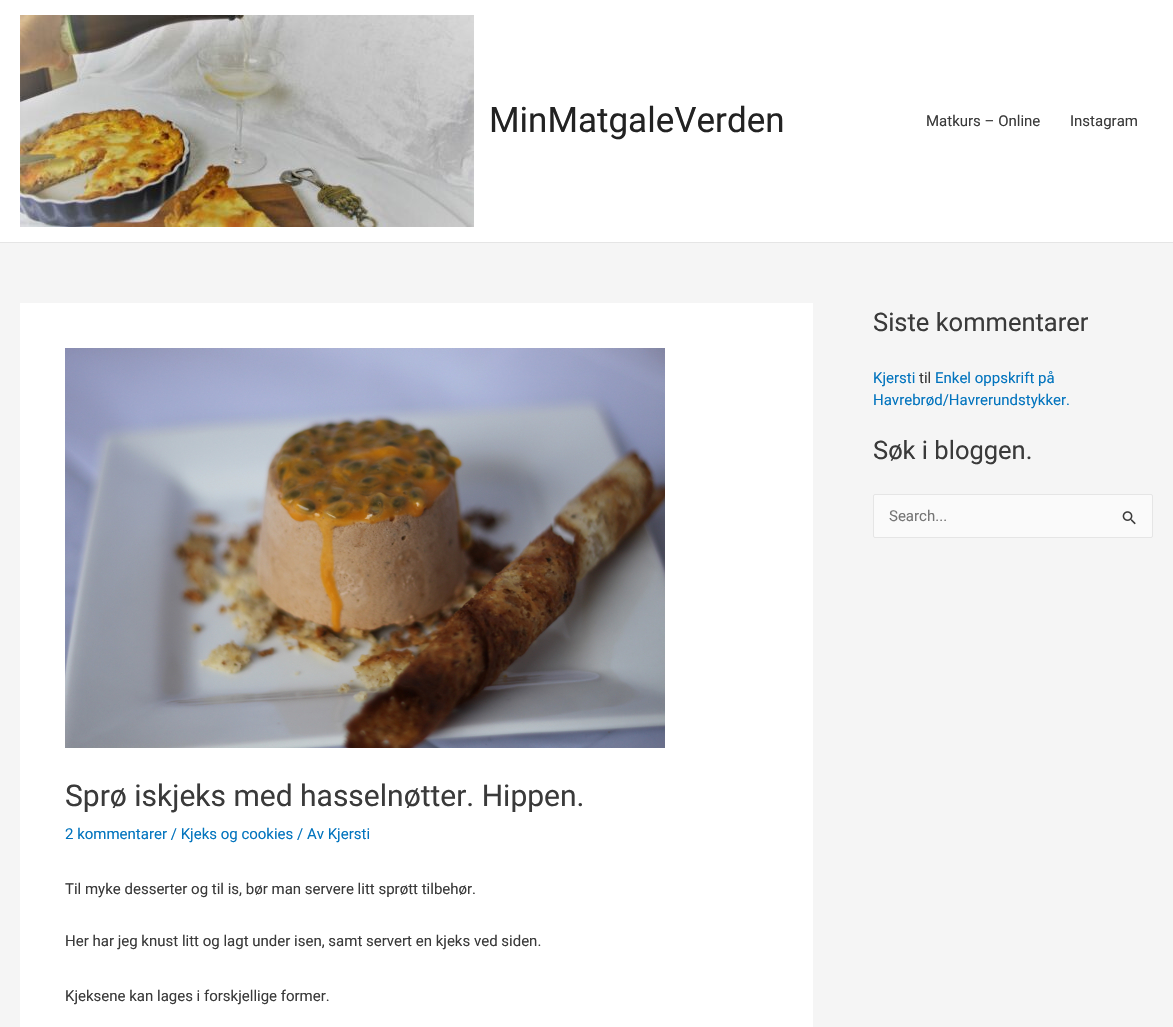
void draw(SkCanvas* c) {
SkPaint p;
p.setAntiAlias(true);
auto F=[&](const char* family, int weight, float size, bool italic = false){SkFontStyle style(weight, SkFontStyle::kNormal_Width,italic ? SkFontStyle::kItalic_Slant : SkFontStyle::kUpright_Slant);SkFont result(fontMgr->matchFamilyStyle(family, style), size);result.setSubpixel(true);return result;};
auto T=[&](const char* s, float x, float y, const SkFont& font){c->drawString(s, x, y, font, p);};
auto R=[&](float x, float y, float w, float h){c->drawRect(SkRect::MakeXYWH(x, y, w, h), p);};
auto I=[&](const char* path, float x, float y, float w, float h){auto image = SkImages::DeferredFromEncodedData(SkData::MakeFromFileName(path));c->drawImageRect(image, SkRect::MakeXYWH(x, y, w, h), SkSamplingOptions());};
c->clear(0xfff5f5f5);
p.setColor(0xffffffff);
R(0,0,1173,242);
p.setColor(0xffe5e5e5);
R(0,242,1173,1);
I("1.png",20,15,454,212);
auto f1 = F("Roboto",400,35);
p.setColor(0xff222222);
T("MinMatgaleVerden",489,132,f1);
auto f2 = F("Roboto",400,15);
p.setColor(0xff3a3a3a);
T("Matkurs – Online",926,126,f2);
T("Instagram",1070,126,f2);
auto f3 = F("Roboto",400,25.5);
T("Siste kommentarer",873,331,f3);
p.setColor(0xff0274be);
T("Kjersti",873,383,f2);
p.setColor(0xff3a3a3a);
T("til",919,383,f2);
p.setColor(0xff0274be);
T("Enkel oppskrift på",935,383,f2);
T("Havrebrød/Havrerundstykker.",873,405,f2);
p.setColor(0xff3a3a3a);
T("Søk i bloggen.",873,459,f3);
p.setColor(0xfffafafa);
c->drawRoundRect(SkRect::MakeXYWH(873.5,494.5,279,43),1.5,1.5,p);
p.setStroke(true);
p.setStrokeWidth(1);
p.setColor(0xffe5e5e5);
c->drawRoundRect(SkRect::MakeXYWH(873.5,494.5,279,43),1.5,1.5,p);
p.setStroke(false);
p.setColor(0xff757575);
T("Search...",889,521,f2);
I("2.png",1122,511,14,14);
p.setColor(0xffffffff);
R(20,303,793,724);
I("3.png",65,348,600,400);
auto f4 = F("Roboto",400,30);
p.setColor(0xff3a3a3a);
T("Sprø iskjeks med hasselnøtter. Hippen.",65,806,f4);
p.setColor(0xff0274be);
T("2 kommentarer / Kjeks og cookies / Av Kjersti",65,839,f2);
p.setColor(0xff3a3a3a);
T("Til myke desserter og til is, bør man servere litt sprøtt tilbehør.",65,894,f2);
T("Her har jeg knust litt og lagt under isen, samt servert en kjeks ved siden.",65,946,f2);
T("Kjeksene kan lages i forskjellige former.",65,1001,f2);
}
